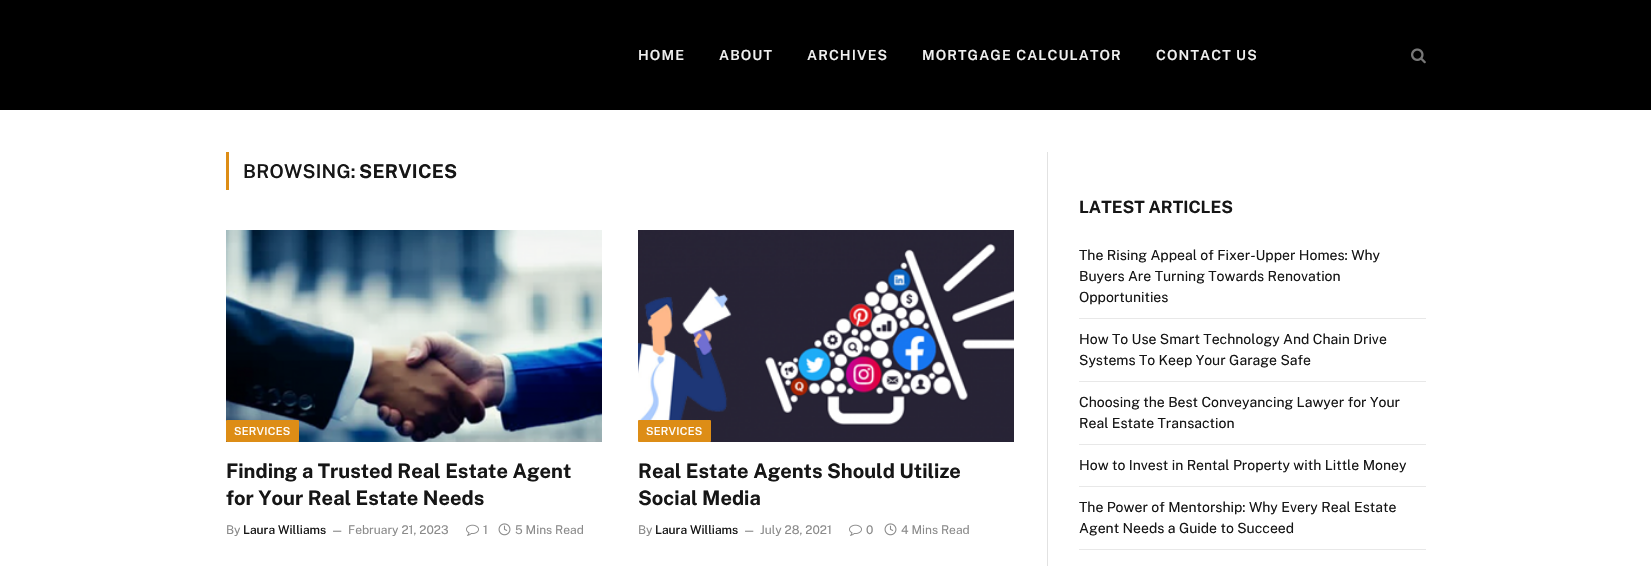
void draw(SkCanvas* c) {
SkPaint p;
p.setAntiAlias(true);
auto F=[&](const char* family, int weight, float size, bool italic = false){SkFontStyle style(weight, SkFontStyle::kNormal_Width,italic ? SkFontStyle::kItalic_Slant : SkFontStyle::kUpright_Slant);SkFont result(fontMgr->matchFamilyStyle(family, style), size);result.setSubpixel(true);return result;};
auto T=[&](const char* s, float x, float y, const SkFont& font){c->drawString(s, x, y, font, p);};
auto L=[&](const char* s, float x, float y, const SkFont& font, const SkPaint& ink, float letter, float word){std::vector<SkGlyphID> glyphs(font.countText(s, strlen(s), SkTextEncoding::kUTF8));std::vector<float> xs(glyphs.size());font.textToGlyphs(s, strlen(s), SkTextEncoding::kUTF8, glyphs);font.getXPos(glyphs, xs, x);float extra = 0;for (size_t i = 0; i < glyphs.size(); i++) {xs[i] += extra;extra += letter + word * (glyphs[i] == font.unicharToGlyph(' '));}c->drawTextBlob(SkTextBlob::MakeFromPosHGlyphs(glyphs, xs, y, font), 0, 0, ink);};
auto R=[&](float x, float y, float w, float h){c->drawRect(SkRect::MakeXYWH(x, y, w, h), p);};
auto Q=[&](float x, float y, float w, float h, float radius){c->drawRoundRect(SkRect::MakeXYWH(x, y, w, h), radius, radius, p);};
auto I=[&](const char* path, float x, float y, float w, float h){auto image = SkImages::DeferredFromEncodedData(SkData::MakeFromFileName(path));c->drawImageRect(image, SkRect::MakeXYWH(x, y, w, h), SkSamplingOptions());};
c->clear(0xffffffff);
p.setColor(0xff000000);
R(0,0,1651,110);
auto f1 = F("Public Sans",600,14);
p.setColor(0xfff0f0f0);
L("HOME",638,60,f1,p,1.1,0);
L("ABOUT",719,60,f1,p,1.1,0);
L("ARCHIVES",807,60,f1,p,1.1,0);
L("MORTGAGE CALCULATOR",922,60,f1,p,1.1,0);
L("CONTACT US",1156,60,f1,p,1.1,0);
I("1.png",1411,48,15,16);
p.setColor(0xffdd8d16);
R(226,152,3,38);
auto f2 = F("Public Sans",600,19);
p.setColor(0xff161616);
L("BROWSING:",243,178,f2,p,.25,0);
auto f3 = F("Public Sans",700,19);
L("SERVICES",359,178,f3,p,.25,0);
I("2.png",226,230,376,212);
p.setColor(0xffdd8d16);
Q(226,420,73,22,1);
auto f4 = F("Public Sans",500,11);
p.setColor(0xffffffff);
L("SERVICES",234,435,f4,p,.25,0);
auto f5 = F("Public Sans",700,20);
p.setColor(0xff161616);
T("Finding a Trusted Real Estate Agent",226,478,f5);
T("for Your Real Estate Needs",226,505,f5);
auto f6 = F("Public Sans",400,12);
p.setColor(0xff8a8a8a);
T("By",226,534,f6);
auto f7 = F("Public Sans",500,12);
p.setColor(0xff161616);
T("Laura Williams",243,534,f7);
auto f8 = F("Public Sans",400,11);
p.setColor(0xff8a8a8a);
T("—",331,534,f8);
T("February 21, 2023",348,534,f6);
I("3.png",466,524,13,12);
T("1",483,534,f6);
I("4.png",498,523,13,13);
T("5 Mins Read",515,534,f6);
I("5.png",638,230,376,212);
p.setColor(0xffdd8d16);
Q(638,420,73,22,1);
p.setColor(0xffffffff);
L("SERVICES",646,435,f4,p,.25,0);
p.setColor(0xff161616);
T("Real Estate Agents Should Utilize",638,478,f5);
T("Social Media",638,505,f5);
p.setColor(0xff8a8a8a);
T("By",638,534,f6);
p.setColor(0xff161616);
T("Laura Williams",655,534,f7);
p.setColor(0xff8a8a8a);
T("—",743,534,f8);
T("July 28, 2021",760,534,f6);
I("3.png",849,524,13,12);
T("0",866,534,f6);
I("4.png",884,523,13,13);
T("4 Mins Read",901,534,f6);
p.setColor(0xffe2e2e2);
R(1047,152,1,414);
auto f9 = F("Public Sans",700,17);
p.setColor(0xff161616);
T("LATEST ARTICLES",1079,213,f9);
p.setColor(0xffe8e8e8);
R(1079,318,347,1);
auto f10 = F("Public Sans",400,14);
p.setColor(0xff161616);
T("The Rising Appeal of Fixer-Upper Homes: Why",1079,260,f10);
T("Buyers Are Turning Towards Renovation",1079,281,f10);
T("Opportunities",1079,302,f10);
p.setColor(0xffe8e8e8);
R(1079,381,347,1);
p.setColor(0xff161616);
T("How To Use Smart Technology And Chain Drive",1079,344,f10);
T("Systems To Keep Your Garage Safe",1079,365,f10);
p.setColor(0xffe8e8e8);
R(1079,444,347,1);
p.setColor(0xff161616);
T("Choosing the Best Conveyancing Lawyer for Your",1079,407,f10);
T("Real Estate Transaction",1079,428,f10);
p.setColor(0xffe8e8e8);
R(1079,486,347,1);
p.setColor(0xff161616);
T("How to Invest in Rental Property with Little Money",1079,470,f10);
p.setColor(0xffe8e8e8);
R(1079,549,347,1);
p.setColor(0xff161616);
T("The Power of Mentorship: Why Every Real Estate",1079,512,f10);
T("Agent Needs a Guide to Succeed",1079,533,f10);
}
